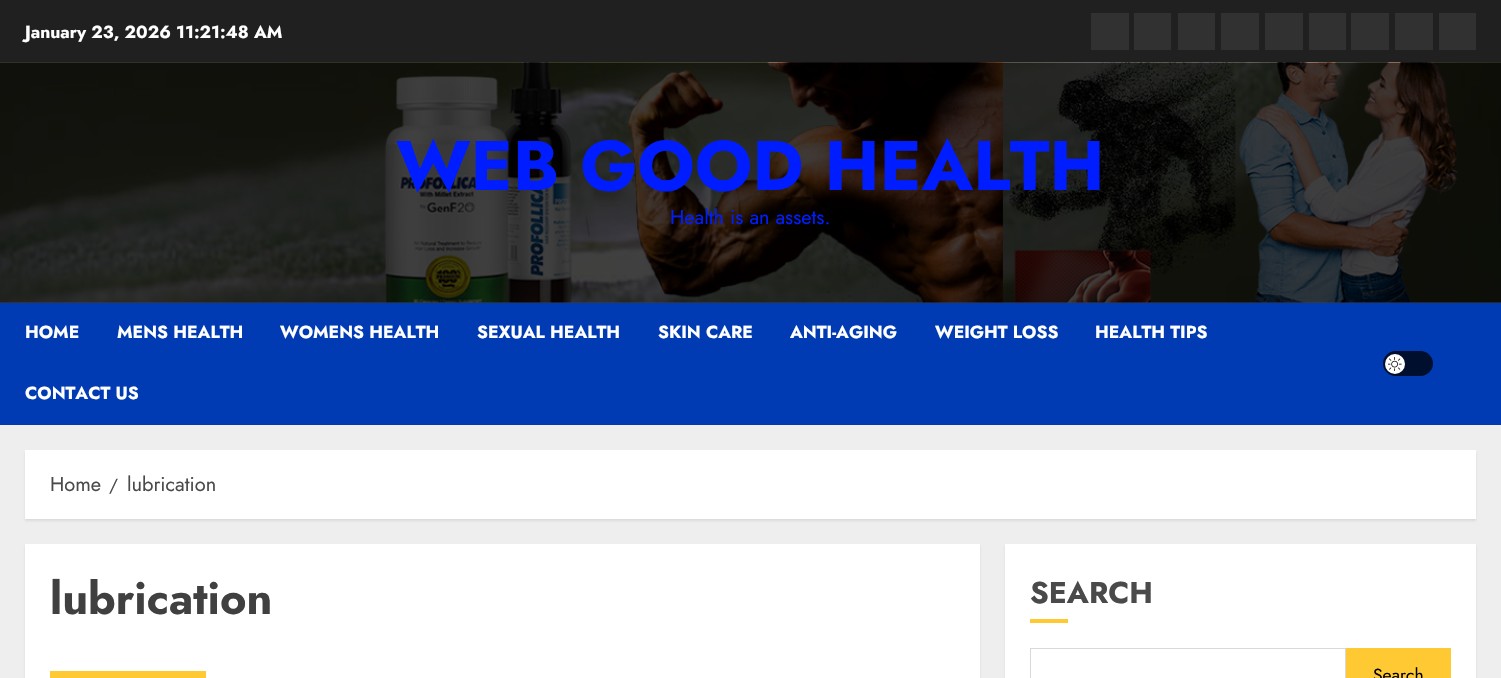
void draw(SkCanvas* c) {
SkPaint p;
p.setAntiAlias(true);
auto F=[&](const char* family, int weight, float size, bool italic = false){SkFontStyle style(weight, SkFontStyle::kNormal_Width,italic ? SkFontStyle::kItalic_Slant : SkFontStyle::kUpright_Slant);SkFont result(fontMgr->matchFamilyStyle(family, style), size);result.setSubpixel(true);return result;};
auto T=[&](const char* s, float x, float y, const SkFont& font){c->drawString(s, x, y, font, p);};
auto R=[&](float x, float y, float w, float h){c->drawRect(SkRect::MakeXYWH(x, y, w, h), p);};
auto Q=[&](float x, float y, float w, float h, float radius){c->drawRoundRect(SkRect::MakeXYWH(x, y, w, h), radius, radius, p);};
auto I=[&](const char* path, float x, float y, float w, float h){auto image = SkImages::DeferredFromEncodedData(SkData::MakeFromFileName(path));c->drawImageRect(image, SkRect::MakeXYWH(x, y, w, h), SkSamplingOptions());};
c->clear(0xffeeeeee);
p.setColor(0xff202020);
R(0,0,1501,63);
auto f1 = F("Jost",700,17.5);
p.setColor(0xffffffff);
T("January 23, 2026 11:21:48 AM",25,38,f1);
p.setColor(0xff313131);
R(1091,13,38,37);
R(1134,13,37,37);
R(1178,13,37,37);
R(1221,13,38,37);
R(1265,13,38,37);
R(1309,13,37,37);
R(1351,13,38,37);
R(1395,13,38,37);
R(1439,13,37,37);
p.setColor(0xff404040);
R(0,302,1501,1);
I("1.png",0,62,1501,241);
auto f2 = F("Jost",700,70);
p.setColor(0xff001dff);
T("WEB GOOD HEALTH",396,190,f2);
auto f3 = F("Jost",400,20);
T("Health is an assets.",670,224,f3);
p.setColor(0xff003bb3);
R(0,303,1501,122);
p.setColor(0xffffffff);
T("HOME",25,338,f1);
T("MENS HEALTH",117,338,f1);
T("WOMENS HEALTH",280,338,f1);
T("SEXUAL HEALTH",477,338,f1);
T("SKIN CARE",658,338,f1);
T("ANTI-AGING",790,338,f1);
T("WEIGHT LOSS",935,338,f1);
T("HEALTH TIPS",1095,338,f1);
T("CONTACT US",25,399,f1);
p.setColor(0xff000f2d);
Q(1383,351,50,25,12.5);
p.setColor(0xffffffff);
c->drawCircle(1395,364,10,p);
I("2.png",1388,357,14,14);
p.setColor(0x14000000);
p.setMaskFilter(SkMaskFilter::MakeBlur(kNormal_SkBlurStyle, 1));
c->drawRect(SkRect::MakeXYWH(25,453,1451,68),p);
p.setMaskFilter(nullptr);
p.setColor(0xffffffff);
R(25,450,1451,69);
p.setColor(0xff4a4a4a);
T("Home",50,491,f3);
auto f4 = F("Jost",400,17.5);
T("/",109,491,f4);
T("lubrication",127,491,f3);
p.setColor(0x14000000);
p.setMaskFilter(SkMaskFilter::MakeBlur(kNormal_SkBlurStyle, 1));
c->drawRect(SkRect::MakeXYWH(25,546,955,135),p);
p.setMaskFilter(nullptr);
p.setColor(0xffffffff);
R(25,544,955,134);
auto f5 = F("Jost",700,45);
p.setColor(0xff404040);
T("lubrication",50,614,f5);
p.setColor(0xffffc934);
R(50,671,156,7);
p.setColor(0x14000000);
p.setMaskFilter(SkMaskFilter::MakeBlur(kNormal_SkBlurStyle, 1));
c->drawRect(SkRect::MakeXYWH(1005,546,471,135),p);
p.setMaskFilter(nullptr);
p.setColor(0xffffffff);
R(1005,544,471,134);
auto f6 = F("Jost",700,30);
p.setColor(0xff4a4a4a);
T("SEARCH",1030,603,f6);
p.setColor(0xffffc934);
R(1030,619,38,4);
p.setStroke(true);
p.setStrokeWidth(1);
p.setColor(0xffd9d9d9);
c->drawRect(SkRect::MakeXYWH(1030.5,648.5,315,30),p);
p.setStroke(false);
p.setColor(0xffffc934);
R(1346,648,105,30);
p.setColor(0xff000000);
T("Search",1373,681,f4);
}
